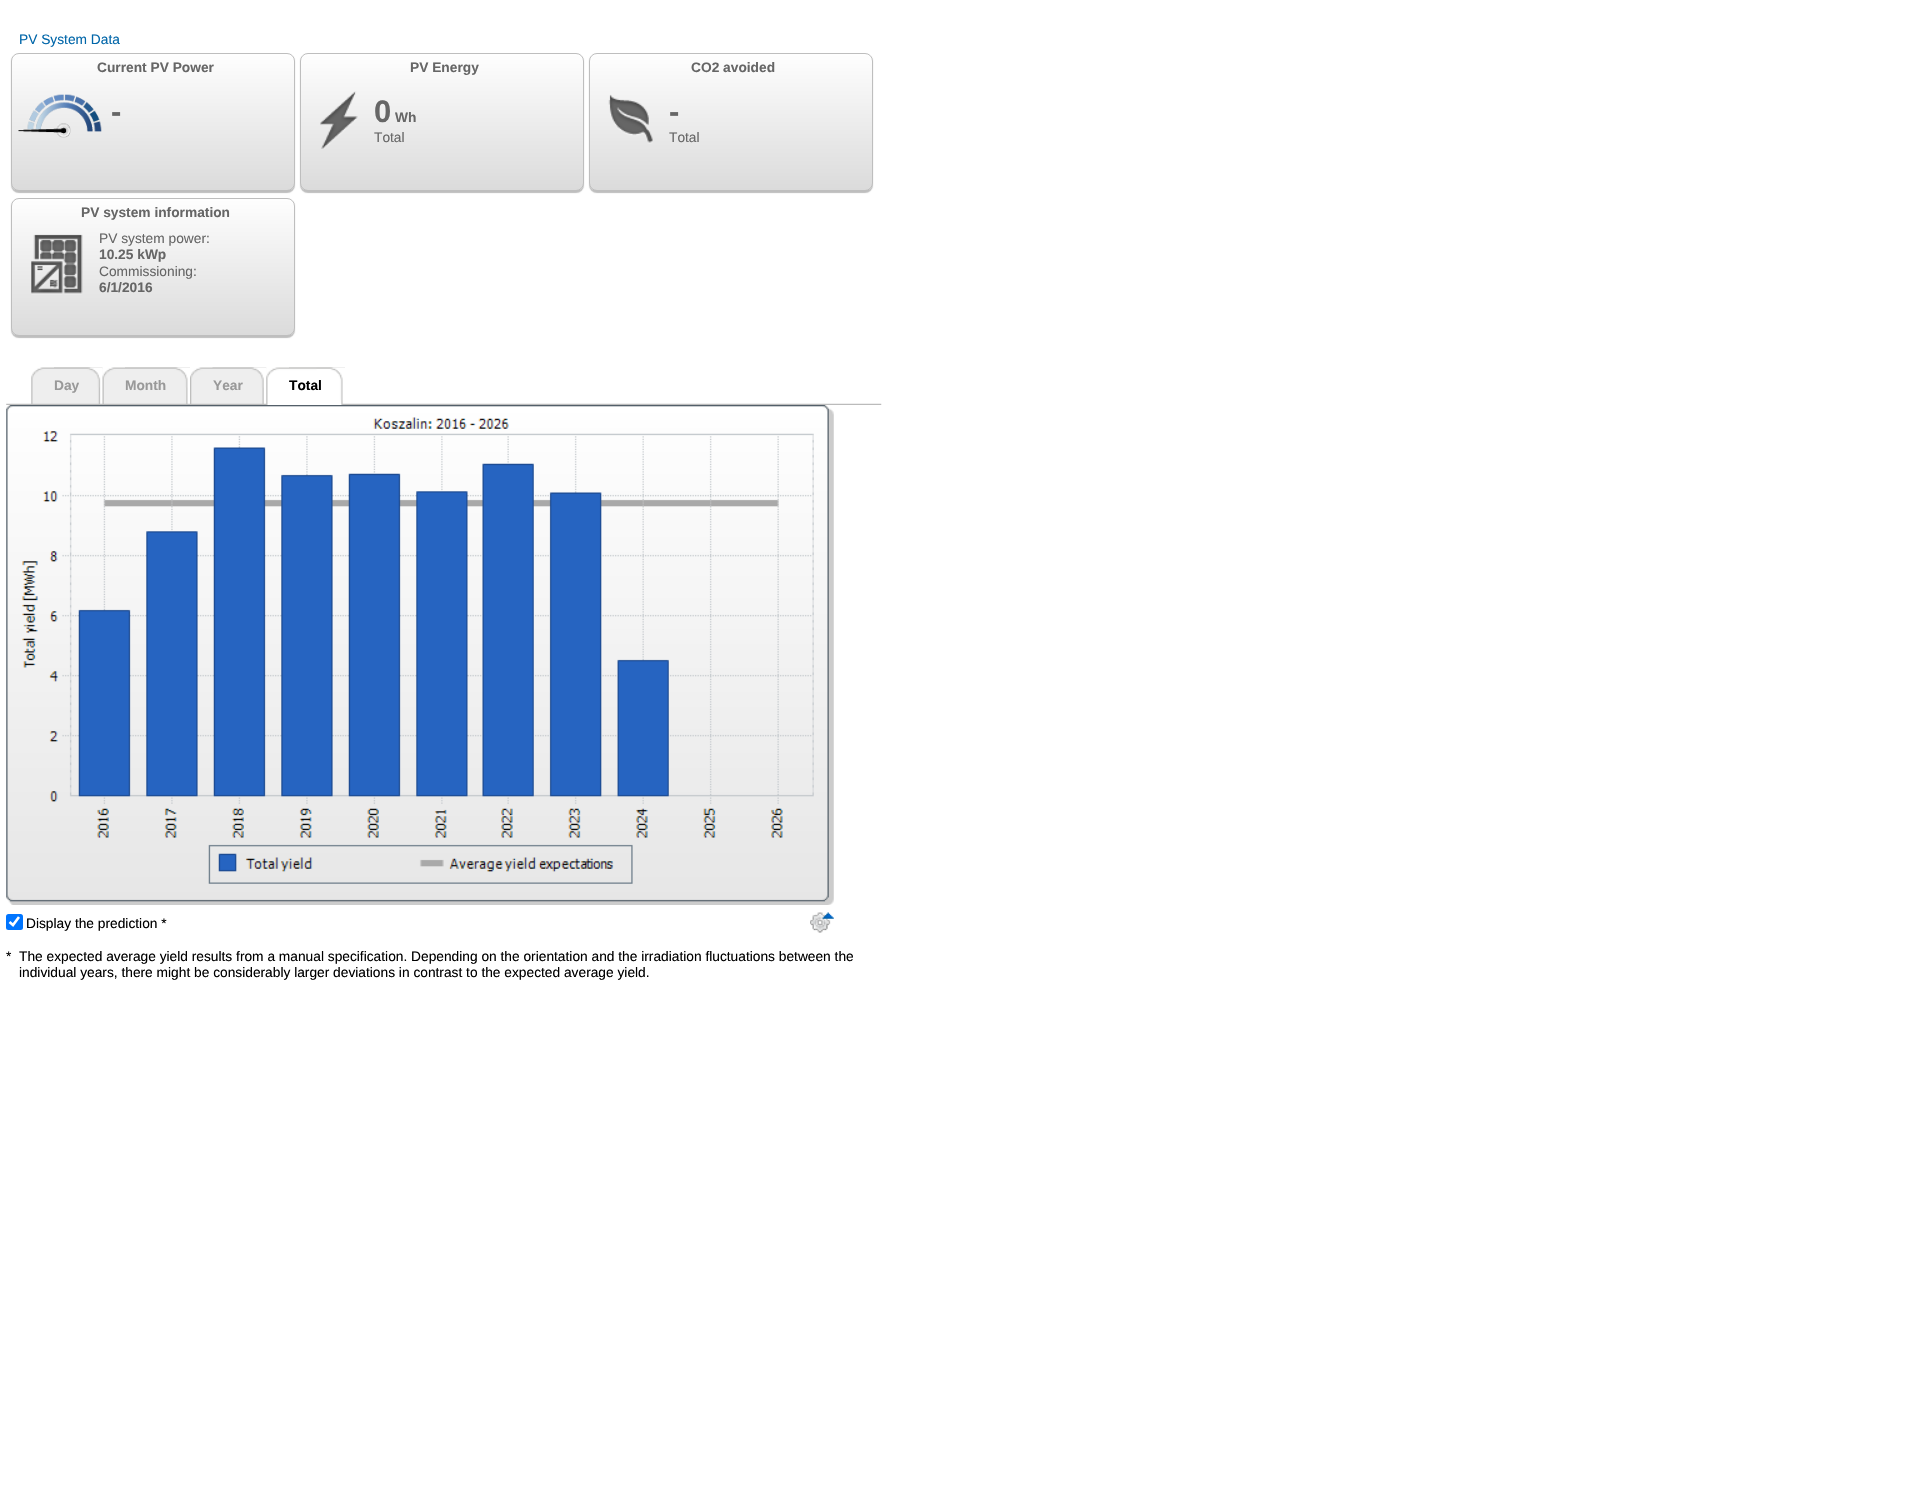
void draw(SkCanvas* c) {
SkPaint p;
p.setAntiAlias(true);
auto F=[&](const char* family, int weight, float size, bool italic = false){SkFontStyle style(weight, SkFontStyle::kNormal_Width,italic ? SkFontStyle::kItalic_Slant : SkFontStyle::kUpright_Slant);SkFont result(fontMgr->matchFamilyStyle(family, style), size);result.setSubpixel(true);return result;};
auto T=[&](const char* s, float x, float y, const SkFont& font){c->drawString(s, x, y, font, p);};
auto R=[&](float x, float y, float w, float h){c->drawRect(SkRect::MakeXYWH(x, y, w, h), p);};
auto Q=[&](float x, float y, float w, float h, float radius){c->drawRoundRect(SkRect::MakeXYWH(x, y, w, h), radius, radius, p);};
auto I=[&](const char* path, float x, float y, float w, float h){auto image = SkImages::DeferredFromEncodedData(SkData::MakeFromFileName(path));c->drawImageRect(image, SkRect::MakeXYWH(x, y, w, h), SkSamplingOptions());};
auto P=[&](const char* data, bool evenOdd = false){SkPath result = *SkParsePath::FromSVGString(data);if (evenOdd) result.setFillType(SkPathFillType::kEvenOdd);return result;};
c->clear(0xffffffff);
auto f1 = F("Liberation Sans",400,13.75);
p.setColor(0xff0166a9);
T("PV System Data",19,44,f1);
p.setColor(0xffbebebe);
p.setMaskFilter(SkMaskFilter::MakeBlur(kNormal_SkBlurStyle, .5));
c->drawRoundRect(SkRect::MakeXYWH(11,54,284,139),8,8,p);
p.setMaskFilter(nullptr);
c->save();
c->clipPath(P("M19 53h268c4.5 0 8 3.5 8 8v122c0 4.5-3.5 8-8 8h-268c-4.5 0-8-3.5-8-8v-122c0-4.5 3.5-8 8-8z"),true);
{
const SkColor colors[] = {0xfffefefe,0xffdbdbdb};
const float stops[] = {0,1};
const SkPoint ends[] = {{153,54}, {153,190}};
p.setShader(SkGradientShader::MakeLinear(ends, colors, stops, 2, SkTileMode::kClamp));
p.setAlpha(255);
}
R(11,54,284,136);
c->restore();
p.setStroke(true);
p.setStrokeWidth(1);
p.setShader(nullptr);
p.setColor(0xffbebebe);
c->drawRoundRect(SkRect::MakeXYWH(11.5,53.5,283,137),7.5,7.5,p);
auto f2 = F("Liberation Sans",700,13.75);
p.setStroke(false);
p.setColor(0xff666666);
T("Current PV Power",97,72,f2);
I("1.png",27,94,75,44);
auto f3 = F("Liberation Sans",700,31);
T("-",111,122,f3);
I("2.png",18,123,53,15);
p.setColor(0xffbebebe);
p.setMaskFilter(SkMaskFilter::MakeBlur(kNormal_SkBlurStyle, .5));
c->drawRoundRect(SkRect::MakeXYWH(300,54,284,139),8,8,p);
p.setMaskFilter(nullptr);
c->save();
c->clipPath(P("M308 53h268c4.5 0 8 3.5 8 8v122c0 4.5-3.5 8-8 8h-268c-4.5 0-8-3.5-8-8v-122c0-4.5 3.5-8 8-8z"),true);
{
const SkColor colors[] = {0xfffefefe,0xffdbdbdb};
const float stops[] = {0,1};
const SkPoint ends[] = {{442,54}, {442,190}};
p.setShader(SkGradientShader::MakeLinear(ends, colors, stops, 2, SkTileMode::kClamp));
p.setAlpha(255);
}
R(300,54,284,136);
c->restore();
p.setStroke(true);
p.setShader(nullptr);
p.setColor(0xffbebebe);
c->drawRoundRect(SkRect::MakeXYWH(300.5,53.5,283,137),7.5,7.5,p);
p.setStroke(false);
p.setColor(0xff666666);
T("PV Energy",410,72,f2);
I("3.png",320,91,38,58);
T("0",374,122,f3);
T("Wh",395,122,f2);
T("Total",374,142,f1);
p.setColor(0xffbebebe);
p.setMaskFilter(SkMaskFilter::MakeBlur(kNormal_SkBlurStyle, .5));
c->drawRoundRect(SkRect::MakeXYWH(589,54,284,139),8,8,p);
p.setMaskFilter(nullptr);
c->save();
c->clipPath(P("M597 53h268c4.5 0 8 3.5 8 8v122c0 4.5-3.5 8-8 8h-268c-4.5 0-8-3.5-8-8v-122c0-4.5 3.5-8 8-8z"),true);
{
const SkColor colors[] = {0xfffefefe,0xffdbdbdb};
const float stops[] = {0,1};
const SkPoint ends[] = {{731,54}, {731,190}};
p.setShader(SkGradientShader::MakeLinear(ends, colors, stops, 2, SkTileMode::kClamp));
p.setAlpha(255);
}
R(589,54,284,136);
c->restore();
p.setStroke(true);
p.setShader(nullptr);
p.setColor(0xffbebebe);
c->drawRoundRect(SkRect::MakeXYWH(589.5,53.5,283,137),7.5,7.5,p);
p.setStroke(false);
p.setColor(0xff666666);
T("CO2 avoided",691,72,f2);
I("4.png",608,94,45,50);
T("-",669,122,f3);
T("Total",669,142,f1);
p.setColor(0xffbebebe);
p.setMaskFilter(SkMaskFilter::MakeBlur(kNormal_SkBlurStyle, .5));
c->drawRoundRect(SkRect::MakeXYWH(11,199,284,139),8,8,p);
p.setMaskFilter(nullptr);
c->save();
c->clipPath(P("M19 198h268c4.5 0 8 3.5 8 8v122c0 4.5-3.5 8-8 8h-268c-4.5 0-8-3.5-8-8v-122c0-4.5 3.5-8 8-8z"),true);
{
const SkColor colors[] = {0xfffefefe,0xffdbdbdb};
const float stops[] = {0,1};
const SkPoint ends[] = {{153,199}, {153,335}};
p.setShader(SkGradientShader::MakeLinear(ends, colors, stops, 2, SkTileMode::kClamp));
p.setAlpha(255);
}
R(11,199,284,136);
c->restore();
p.setStroke(true);
p.setShader(nullptr);
p.setColor(0xffbebebe);
c->drawRoundRect(SkRect::MakeXYWH(11.5,198.5,283,137),7.5,7.5,p);
p.setStroke(false);
p.setColor(0xff666666);
T("PV system information",81,217,f2);
I("5.png",31,234,52,61);
T("PV system power:",99,243,f1);
T("10.25 kWp",99,259,f2);
T("Commissioning:",99,276,f1);
T("6/1/2016",99,292,f2);
I("6.png",6,403,876,2);
I("7.png",31,367,72,37);
I("8.png",54,367,49,37);
p.setColor(0xff999999);
T("Day",54,390,f2);
I("9.png",102,367,88,37);
I("10.png",125,367,65,37);
T("Month",125,390,f2);
I("11.png",190,367,77,37);
I("12.png",212,367,54,37);
T("Year",213,390,f2);
I("13.png",266,367,79,38);
I("14.png",289,367,56,38);
p.setColor(0xff000000);
T("Total",289,390,f2);
I("15.png",6,405,828,500);
p.setColor(0xff0075ff);
Q(6,914,17,16,2.5);
p.setStroke(true);
p.setStrokeWidth(2.6);
p.setColor(0xffffffff);
c->drawPath(P("M9.5 922l3.5 3l6-8"),p);
p.setStroke(false);
p.setColor(0xff000000);
T("Display the prediction *",26,928,f1);
I("16.png",810,912,24,21);
T("*",6,961,f1);
T("The expected average yield results from a manual specification. Depending on the orientation and the irradiation fluctuations between the",19,961,f1);
T("individual years, there might be considerably larger deviations in contrast to the expected average yield.",19,977,f1);
}
